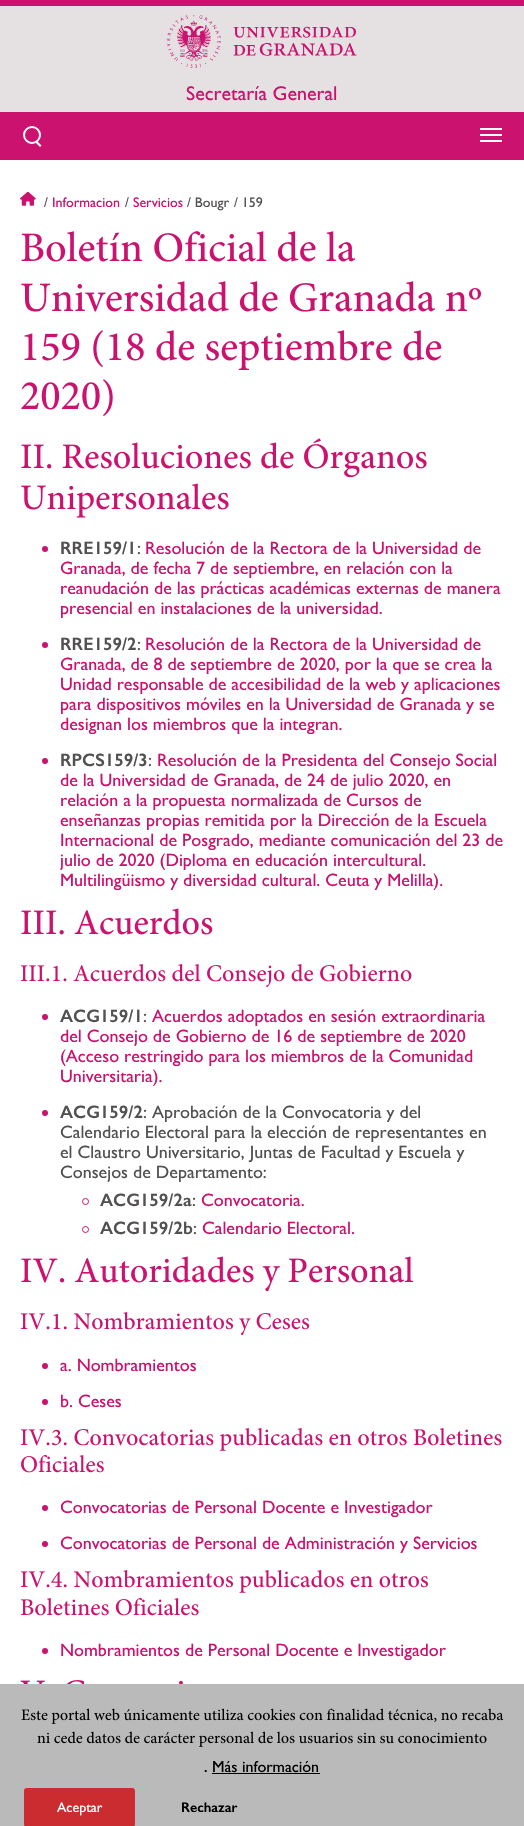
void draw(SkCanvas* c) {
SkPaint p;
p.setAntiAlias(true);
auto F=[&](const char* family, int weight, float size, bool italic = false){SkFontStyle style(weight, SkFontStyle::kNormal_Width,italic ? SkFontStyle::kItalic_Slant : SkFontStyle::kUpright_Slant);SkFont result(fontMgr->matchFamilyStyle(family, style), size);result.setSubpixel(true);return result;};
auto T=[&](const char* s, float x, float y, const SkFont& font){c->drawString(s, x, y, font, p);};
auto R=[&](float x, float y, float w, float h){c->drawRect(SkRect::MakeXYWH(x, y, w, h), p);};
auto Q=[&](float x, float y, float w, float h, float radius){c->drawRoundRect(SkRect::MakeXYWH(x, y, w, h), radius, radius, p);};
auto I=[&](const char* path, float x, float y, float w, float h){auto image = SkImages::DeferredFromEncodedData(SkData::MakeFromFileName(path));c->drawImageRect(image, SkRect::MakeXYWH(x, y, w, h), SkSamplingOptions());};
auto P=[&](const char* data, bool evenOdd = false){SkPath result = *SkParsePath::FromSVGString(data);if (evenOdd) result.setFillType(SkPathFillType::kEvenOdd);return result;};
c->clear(0xffffffff);
p.setColor(0xffca126e);
R(0,0,524,6);
R(0,112,524,48);
p.setColor(0xffe5e1e2);
R(0,6,524,106);
I("1.png",166,15,191,53);
auto f1 = F("Gill Sans",400,20);
p.setColor(0xffca126e);
T("Secretaría General",186,100,f1);
p.setStroke(true);
p.setStrokeWidth(2);
p.setColor(0xffffffff);
c->drawCircle(32,135,8,p);
p.setStroke(false);
c->drawPath(P("M37 141l4.5 4.5l-1.5 1.5l-4.5-4.5z"),p);
R(480,134,22,2);
R(480,128,22,2);
R(480,140,22,2);
I("2.png",20,192,16,14);
auto f2 = F("Gill Sans",400,14);
p.setColor(0xff535050);
T("/",44,207,f2);
p.setColor(0xffca126e);
T("Informacion",52,207,f2);
p.setColor(0xff535050);
T("/",125,207,f2);
p.setColor(0xffca126e);
T("Servicios",133,207,f2);
p.setColor(0xff535050);
T("/ Bougr",187,207,f2);
T("/ 159",234,207,f2);
I("3.png",21,231,335,31);
I("4.png",21,281,460,31);
I("5.png",24,330,418,40);
I("6.png",21,379,92,37);
I("7.png",21,438,406,40);
I("8.png",21,483,208,35);
p.setColor(0xffca126e);
c->drawCircle(45,549,3,p);
auto f3 = F("Gill Sans",600,18);
p.setColor(0xff535050);
T("RRE159/1",60,554,f3);
auto f4 = F("Gill Sans",400,18);
T(":",137,554,f4);
p.setColor(0xffca126e);
T("Resolución de la Rectora de la Universidad de",145,554,f4);
T("Granada, de fecha 7 de septiembre, en relación con la",60,574,f4);
T("reanudación de las prácticas académicas externas de manera",60,594,f4);
T("presencial en instalaciones de la universidad.",60,614,f4);
c->drawCircle(45,645,3,p);
p.setColor(0xff535050);
T("RRE159/2",60,650,f3);
T(":",137,650,f4);
p.setColor(0xffca126e);
T("Resolución de la Rectora de la Universidad de",145,650,f4);
T("Granada, de 8 de septiembre de 2020, por la que se crea la",60,670,f4);
T("Unidad responsable de accesibilidad de la web y aplicaciones",60,690,f4);
T("para dispositivos móviles en la Universidad de Granada y se",60,710,f4);
T("designan los miembros que la integran.",60,730,f4);
c->drawCircle(45,761,3,p);
p.setColor(0xff535050);
T("RPCS159/3",60,766,f3);
T(":",148,766,f4);
p.setColor(0xffca126e);
T("Resolución de la Presidenta del Consejo Social",157,766,f4);
T("de la Universidad de Granada, de 24 de julio 2020, en",60,786,f4);
T("relación a la propuesta normalizada de Cursos de",60,806,f4);
T("enseñanzas propias remitida por la Dirección de la Escuela",60,826,f4);
T("Internacional de Posgrado, mediante comunicación del 23 de",60,846,f4);
T("julio de 2020 (Diploma en educación intercultural.",60,866,f4);
T("Multilingüismo y diversidad cultural. Ceuta y Melilla).",60,886,f4);
I("9.png",21,908,192,27);
I("10.png",20,964,392,23);
c->drawCircle(45,1017,3,p);
p.setColor(0xff535050);
T("ACG159/1",60,1022,f3);
T(":",143,1022,f4);
p.setColor(0xffca126e);
T("Acuerdos adoptados en sesión extraordinaria",152,1022,f4);
T("del Consejo de Gobierno de 16 de septiembre de 2020",60,1042,f4);
T("(Acceso restringido para los miembros de la Comunidad",60,1062,f4);
T("Universitaria).",60,1082,f4);
c->drawCircle(45,1113,3,p);
p.setColor(0xff535050);
T("ACG159/2",60,1118,f3);
T(": Aprobación de la Convocatoria y del",143,1118,f4);
T("Calendario Electoral para la elección de representantes en",60,1138,f4);
T("el Claustro Universitario, Juntas de Facultad y Escuela y",60,1158,f4);
T("Consejos de Departamento:",60,1178,f4);
p.setStroke(true);
p.setStrokeWidth(1);
p.setColor(0xffca126e);
c->drawCircle(85.5,1201.5,3,p);
p.setStroke(false);
p.setColor(0xff535050);
T("ACG159/2a",100,1206,f3);
T(":",192,1206,f4);
p.setColor(0xffca126e);
T("Convocatoria.",201,1206,f4);
p.setStroke(true);
c->drawCircle(85.5,1229.5,3,p);
p.setStroke(false);
p.setColor(0xff535050);
T("ACG159/2b",100,1234,f3);
T(":",193,1234,f4);
p.setColor(0xffca126e);
T("Calendario Electoral.",202,1234,f4);
I("11.png",21,1256,393,36);
I("12.png",20,1312,290,24);
c->drawCircle(45,1366,3,p);
T("a. Nombramientos",60,1371,f4);
c->drawCircle(45,1402,3,p);
T("b. Ceses",60,1407,f4);
I("13.png",20,1428,482,23);
I("14.png",21,1455,83,18);
c->drawCircle(45,1508,3,p);
T("Convocatorias de Personal Docente e Investigador",60,1513,f4);
c->drawCircle(45,1544,3,p);
T("Convocatorias de Personal de Administración y Servicios",60,1549,f4);
I("15.png",20,1570,408,23);
I("16.png",20,1598,179,18);
c->drawCircle(45,1651,3,p);
T("Nombramientos de Personal Docente e Investigador",60,1656,f4);
I("17.png",20,1680,163,4);
p.setColor(0xffbababa);
R(0,1684,524,142);
I("18.png",21,1708,483,16);
I("19.png",37,1731,450,16);
auto f5 = F("Gill Sans",600,14);
p.setColor(0xff000000);
T(".",204,1772,f5);
auto f6 = F("Gill Sans",400,16);
T("Más información",212,1772,f6);
R(212,1773,108,1);
p.setColor(0xffcb2c30);
Q(24,1788,111,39,3);
p.setColor(0xffffffff);
T("Aceptar",57,1812,f2);
p.setColor(0xff000000);
T("Rechazar",181,1812,f5);
}
